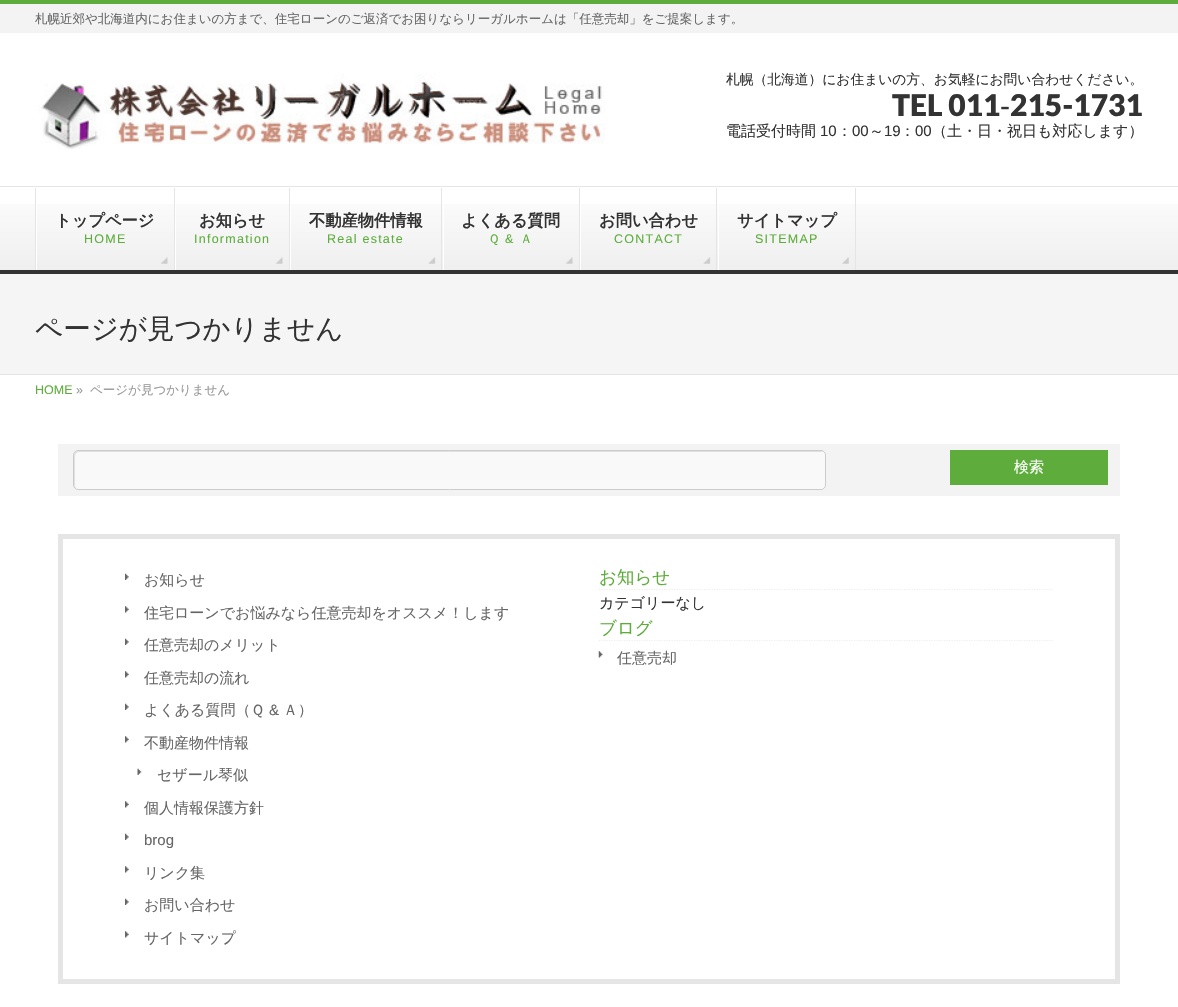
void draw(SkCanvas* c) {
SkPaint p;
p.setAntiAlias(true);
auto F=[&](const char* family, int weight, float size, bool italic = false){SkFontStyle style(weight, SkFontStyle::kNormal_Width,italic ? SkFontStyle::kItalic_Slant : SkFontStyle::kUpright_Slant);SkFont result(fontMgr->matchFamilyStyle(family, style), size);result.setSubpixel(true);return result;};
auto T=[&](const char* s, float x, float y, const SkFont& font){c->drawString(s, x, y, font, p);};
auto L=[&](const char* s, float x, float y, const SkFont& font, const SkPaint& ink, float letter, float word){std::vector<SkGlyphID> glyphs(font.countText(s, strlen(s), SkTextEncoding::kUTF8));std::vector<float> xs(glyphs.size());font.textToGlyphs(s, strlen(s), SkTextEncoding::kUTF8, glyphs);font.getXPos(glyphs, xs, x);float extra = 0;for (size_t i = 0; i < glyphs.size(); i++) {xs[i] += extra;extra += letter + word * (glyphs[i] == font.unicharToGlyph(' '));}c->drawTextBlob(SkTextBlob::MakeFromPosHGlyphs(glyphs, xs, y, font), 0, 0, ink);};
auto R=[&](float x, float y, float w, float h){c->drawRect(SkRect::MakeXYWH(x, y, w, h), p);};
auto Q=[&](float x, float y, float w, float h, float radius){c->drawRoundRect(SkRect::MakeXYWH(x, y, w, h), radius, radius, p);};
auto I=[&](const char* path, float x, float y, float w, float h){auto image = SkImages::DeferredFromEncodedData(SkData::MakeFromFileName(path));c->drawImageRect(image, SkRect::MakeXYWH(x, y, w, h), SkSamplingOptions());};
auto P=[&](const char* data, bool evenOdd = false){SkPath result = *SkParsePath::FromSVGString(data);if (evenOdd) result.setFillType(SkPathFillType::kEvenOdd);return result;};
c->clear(0xffffffff);
p.setColor(0xfff3f3f3);
R(0,4,1178,29);
p.setColor(0xff5ead3c);
R(0,0,1178,4);
auto f1 = F("WenQuanYi Zen Hei",500,12.5);
p.setColor(0xff666666);
T("札幌近郊や北海道内にお住まいの方まで、住宅ローンのご返済でお困りならリーガルホームは「任意売却」をご提案します。",35,23,f1);
I("1.png",38,74,567,75);
auto f2 = F("WenQuanYi Zen Hei",500,13.75);
p.setColor(0xff333333);
T("札幌（北海道）にお住まいの方、お気軽にお問い合わせください。",726,84,f2);
auto f3 = F("Lato",900,30);
T("TEL 011",892,116,f3);
auto f4 = F("Liberation Sans",400,30);
T("‐",1000,116,f4);
T("215-1731",1010,116,f3);
auto f5 = F("WenQuanYi Zen Hei",500,15);
T("電話受付時間",726,136,f5);
auto f6 = F("Liberation Sans",400,15);
T("10",820,136,f6);
T("：",837,136,f5);
T("00",852,136,f6);
T("～",869,136,f5);
T("19",884,136,f6);
T("：",900,136,f5);
T("00",915,136,f6);
T("（土・日・祝日も対応します）",932,136,f5);
I("2.png",0,204,1178,66);
p.setColor(0xffe5e5e5);
R(0,186,1178,1);
p.setColor(0xff333333);
R(0,270,1178,4);
p.setColor(0xffe5e5e5);
R(35,188,1,82);
p.setColor(0xffffffff);
R(36,204,1,66);
I("3.png",161,257,7,7);
p.setColor(0xffe5e5e5);
R(174,188,1,82);
auto f7 = F("WenQuanYi Zen Hei",700,16.25);
p.setColor(0xff333333);
T("トップページ",55,226,f7);
auto f8 = F("Liberation Sans",400,12.5);
p.setColor(0xff5ead3c);
L("HOME",84,243,f8,p,1.25,0);
p.setColor(0xffffffff);
R(175,204,1,66);
I("3.png",276,257,7,7);
p.setColor(0xffe5e5e5);
R(289,188,1,82);
p.setColor(0xff333333);
T("お知らせ",199,226,f7);
p.setColor(0xff5ead3c);
L("Information",194,243,f8,p,1.25,0);
p.setColor(0xffffffff);
R(290,204,1,66);
I("4.png",428,257,8,7);
p.setColor(0xffe5e5e5);
R(441,188,1,82);
p.setColor(0xff333333);
T("不動産物件情報",309,226,f7);
p.setColor(0xff5ead3c);
L("Real estate",327,243,f8,p,1.25,0);
p.setColor(0xffffffff);
R(443,204,1,66);
I("3.png",566,257,7,7);
p.setColor(0xffe5e5e5);
R(579,188,1,82);
p.setColor(0xff333333);
T("よくある質問",461,226,f7);
p.setColor(0xff5ead3c);
L("Ｑ",488,243,f1,p,1.25,0);
L("&",505,243,f8,p,1.25,0);
L("Ａ",520,243,f1,p,1.25,0);
p.setColor(0xffffffff);
R(580,204,1,66);
I("5.png",703,257,8,7);
p.setColor(0xffe5e5e5);
R(716,188,1,82);
p.setColor(0xff333333);
T("お問い合わせ",599,226,f7);
p.setColor(0xff5ead3c);
L("CONTACT",614,243,f8,p,1.25,0);
p.setColor(0xffffffff);
R(718,204,1,66);
I("6.png",842,257,7,7);
p.setColor(0xffe5e5e5);
R(855,188,1,82);
p.setColor(0xff333333);
T("サイトマップ",737,226,f7);
p.setColor(0xff5ead3c);
L("SITEMAP",755,243,f8,p,1.25,0);
p.setColor(0xfff5f5f5);
R(0,274,1178,100);
p.setColor(0xffe5e5e5);
R(0,374,1178,1);
auto f9 = F("WenQuanYi Zen Hei",500,27.5);
p.setColor(0xff333333);
T("ページが見つかりません",35,338,f9);
p.setColor(0xff5ead3c);
T("HOME",35,394,f8);
p.setColor(0xff999999);
T("»",76,394,f8);
T("ページが見つかりません",90,394,f1);
p.setColor(0xfff3f3f3);
R(58,444,1062,52);
p.setColor(0xfff9f9f9);
Q(73,450,753,40,5);
p.setColor(0xffe0e0e0);
c->drawPath(P("M79 452h743h2c-1 0-2-1-3-1h-743c-2 0-4 2-4 4v30c0 1 1 3 2 3l-1-2v-30c0-2 2-4 4-4z"),p);
p.setStroke(true);
p.setStrokeWidth(1);
p.setColor(0xffcccccc);
c->drawRoundRect(SkRect::MakeXYWH(73.5,450.5,752,39),4.5,4.5,p);
p.setStroke(false);
p.setColor(0xff5ead3c);
R(950,450,158,35);
p.setColor(0xffffffff);
T("検索",1014,472,f5);
p.setStroke(true);
p.setStrokeWidth(5);
p.setColor(0xffe5e5e5);
c->drawRect(SkRect::MakeXYWH(60.5,536.5,1057,445),p);
I("7.png",125,573,4,7);
p.setStroke(false);
p.setColor(0xff666666);
T("お知らせ",144,585,f5);
I("8.png",125,606,4,7);
T("住宅ローンでお悩みなら任意売却をオススメ！します",144,618,f5);
I("7.png",125,638,4,7);
T("任意売却のメリット",144,650,f5);
I("8.png",125,671,4,7);
T("任意売却の流れ",144,683,f5);
I("7.png",125,703,4,7);
T("よくある質問（Ｑ",144,715,f5);
T("&",269,715,f6);
T("Ａ）",283,715,f5);
I("8.png",125,736,4,7);
T("不動産物件情報",144,748,f5);
I("9.png",137,768,5,7);
T("セザール琴似",157,780,f5);
I("8.png",125,801,4,7);
T("個人情報保護方針",144,813,f5);
I("7.png",125,833,4,7);
T("brog",144,845,f6);
I("8.png",125,866,4,7);
T("リンク集",144,878,f5);
I("7.png",125,898,4,7);
T("お問い合わせ",144,910,f5);
I("8.png",125,931,4,7);
T("サイトマップ",144,943,f5);
p.setStroke(true);
p.setStrokeWidth(1.2);
p.setColor(0xffeeeeee);
p.setPathEffect(SkDashPathEffect::Make({{1.25f,1.25f}}, 0));
c->drawPath(P("M599 589.5h453.5"),p);
p.setPathEffect(nullptr);
auto f10 = F("WenQuanYi Zen Hei",500,17.5);
p.setStroke(false);
p.setColor(0xff5ead3c);
T("お知らせ",599,583,f10);
p.setColor(0xff333333);
T("カテゴリーなし",599,608,f5);
p.setStroke(true);
p.setColor(0xffeeeeee);
p.setPathEffect(SkDashPathEffect::Make({{1.25f,1.25f}}, 0));
c->drawPath(P("M599 640.5h453.5"),p);
p.setPathEffect(nullptr);
p.setStroke(false);
p.setColor(0xff5ead3c);
T("ブログ",599,634,f10);
I("10.png",598,651,5,7);
p.setColor(0xff666666);
T("任意売却",617,663,f5);
}
